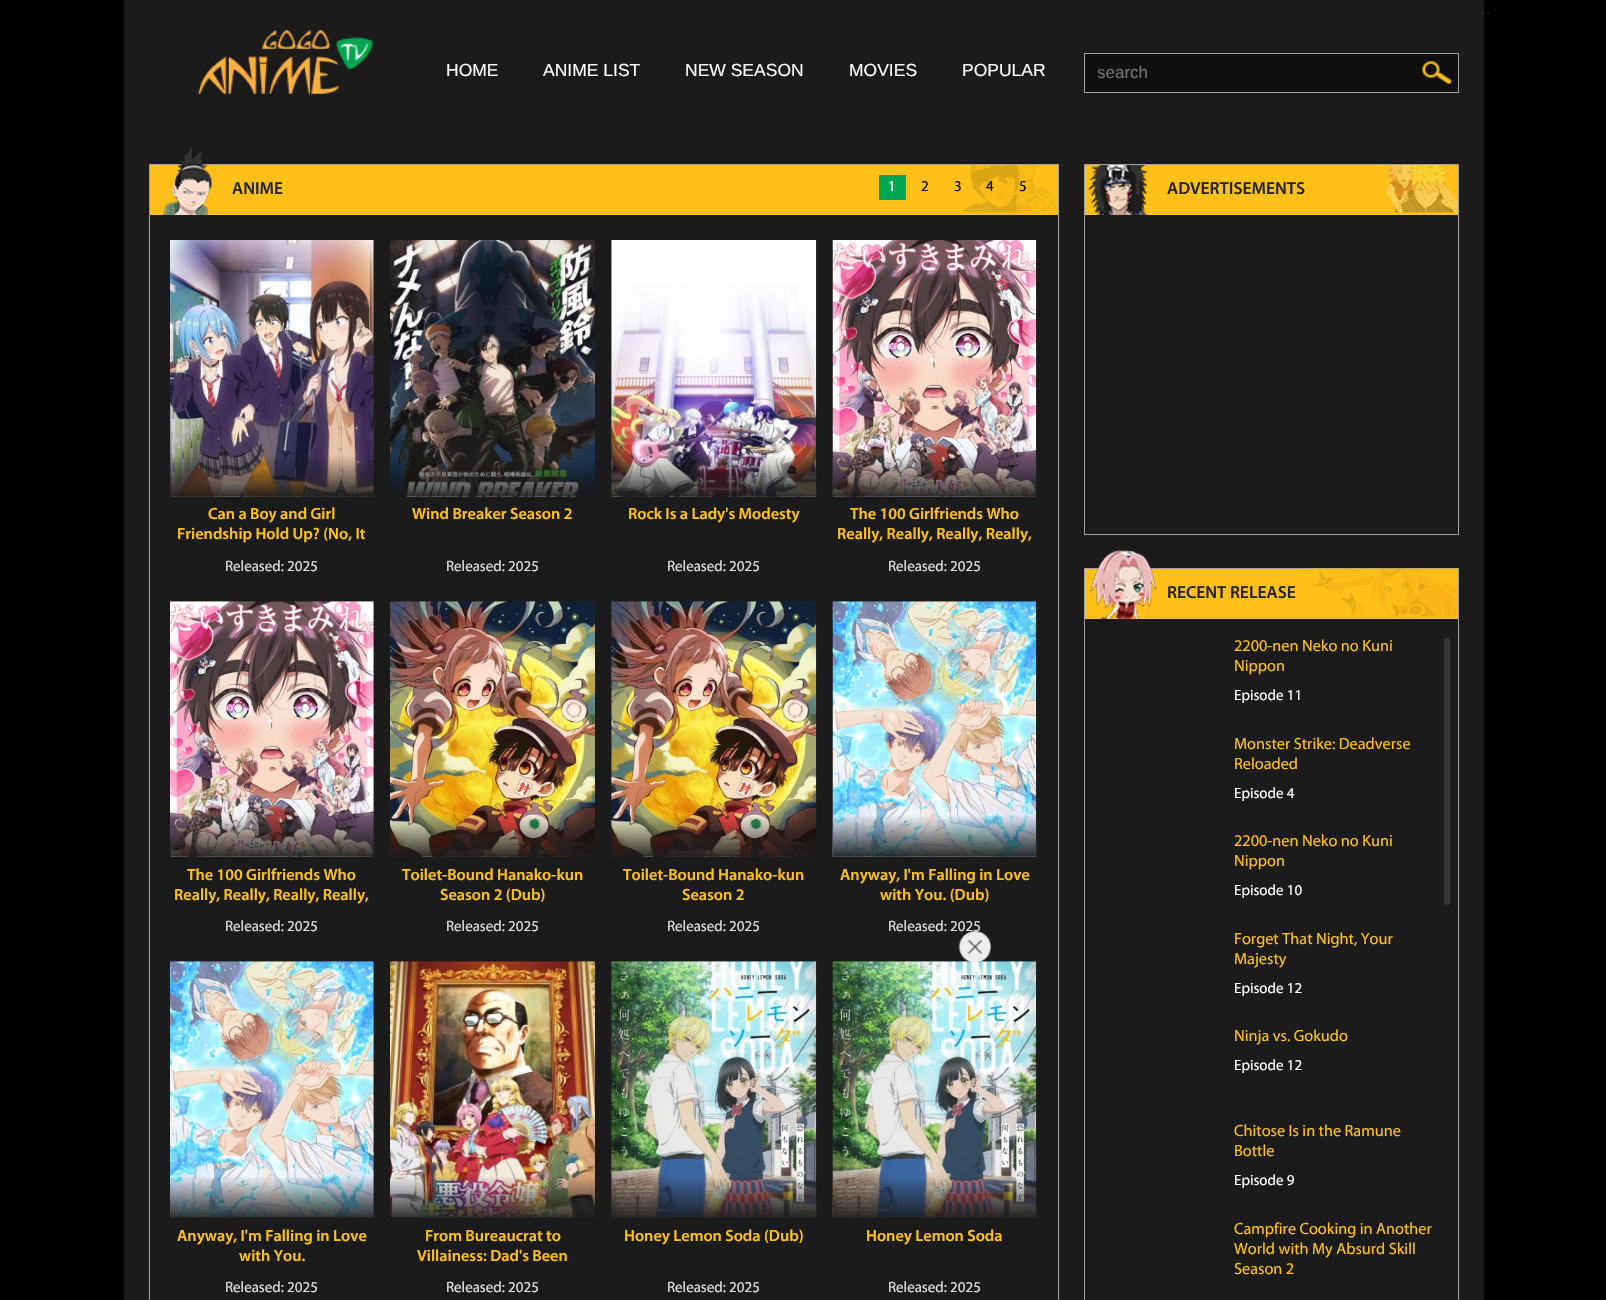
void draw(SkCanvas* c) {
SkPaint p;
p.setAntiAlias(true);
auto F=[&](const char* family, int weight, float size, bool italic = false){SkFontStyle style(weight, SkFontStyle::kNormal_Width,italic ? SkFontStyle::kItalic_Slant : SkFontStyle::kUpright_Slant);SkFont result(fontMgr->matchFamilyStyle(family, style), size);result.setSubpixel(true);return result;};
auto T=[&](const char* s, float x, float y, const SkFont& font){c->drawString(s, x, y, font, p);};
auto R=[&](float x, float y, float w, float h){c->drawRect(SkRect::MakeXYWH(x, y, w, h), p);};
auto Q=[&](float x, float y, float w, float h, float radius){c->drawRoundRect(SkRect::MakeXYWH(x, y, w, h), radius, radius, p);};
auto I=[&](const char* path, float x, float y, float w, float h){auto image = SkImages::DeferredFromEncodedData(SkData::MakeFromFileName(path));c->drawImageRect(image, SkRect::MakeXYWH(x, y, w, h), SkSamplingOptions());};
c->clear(0xff000000);
p.setColor(0xff1b1b1b);
R(124,0,1360,1300);
I("1.png",1483,12,2,2);
I("2.png",1487,12,2,2);
I("3.png",198,29,175,65);
auto f1 = F("Liberation Sans",400,17.5);
p.setColor(0xffffffff);
T("HOME",446,76,f1);
T("ANIME LIST",543,76,f1);
T("NEW SEASON",685,76,f1);
T("MOVIES",849,76,f1);
T("POPULAR",962,76,f1);
p.setColor(0xff101010);
c->drawRect(SkRect::MakeXYWH(1084.5,53.5,374,39),p);
p.setStroke(true);
p.setStrokeWidth(1);
p.setColor(0xffa1a1a1);
c->drawRect(SkRect::MakeXYWH(1084.5,53.5,374,39),p);
c->save();
c->clipRect(SkRect::MakeXYWH(1098,63,347,18));
auto f2 = F("Liberation Sans",400,17);
p.setStroke(false);
p.setColor(0xff757575);
T("search",1097,78,f2);
c->restore();
I("4.png",1422,61,30,23);
p.setStroke(true);
p.setColor(0xffa1a1a1);
c->drawRect(SkRect::MakeXYWH(149.5,164.5,909,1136),p);
p.setStroke(false);
p.setColor(0xffffc119);
R(150,165,908,50);
I("5.png",962,165,96,48);
I("6.png",162,146,51,69);
auto f3 = F("Myriad",600,17.5);
p.setColor(0xff252525);
T("ANIME",232,194,f3);
p.setColor(0xff00a651);
R(879,175,27,25);
auto f4 = F("Myriad",400,15);
p.setColor(0xffffffff);
T("1",888,191,f4);
p.setColor(0xff000000);
T("2",921,191,f4);
T("3",954,191,f4);
T("4",986,191,f4);
T("5",1019,191,f4);
I("7.png",170,240,204,257);
{
const SkColor colors[] = {0x001b1b1b,0xe61b1b1b};
const float stops[] = {0,1};
const SkPoint ends[] = {{272,455}, {272,496}};
p.setShader(SkGradientShader::MakeLinear(ends, colors, stops, 2, SkTileMode::kClamp));
p.setAlpha(255);
}
R(170,456,204,40);
auto f5 = F("Myriad",600,16.25);
p.setShader(nullptr);
p.setColor(0xffffc119);
T("Can a Boy and Girl",208,519,f5);
T("Friendship Hold Up? (No, It",177,539,f5);
p.setColor(0xffe1e1e1);
T("Released: 2025",225,571,f4);
I("8.png",390,240,205,257);
p.setColor(0xffffc119);
T("Wind Breaker Season 2",412,519,f5);
p.setColor(0xffe1e1e1);
T("Released: 2025",446,571,f4);
I("9.png",611,240,206,257);
{
const SkColor colors[] = {0x001b1b1b,0xe61b1b1b};
const float stops[] = {0,1};
const SkPoint ends[] = {{714,455}, {714,496}};
p.setShader(SkGradientShader::MakeLinear(ends, colors, stops, 2, SkTileMode::kClamp));
p.setAlpha(255);
}
R(611,456,205,40);
p.setShader(nullptr);
p.setColor(0xffffc119);
T("Rock Is a Lady's Modesty",628,519,f5);
p.setColor(0xffe1e1e1);
T("Released: 2025",667,571,f4);
I("10.png",832,240,205,257);
p.setColor(0xffffc119);
T("The 100 Girlfriends Who",850,519,f5);
T("Really, Really, Really, Really,",837,539,f5);
p.setColor(0xffe1e1e1);
T("Released: 2025",888,571,f4);
I("11.png",170,601,204,256);
{
const SkColor colors[] = {0x001b1b1b,0xe61b1b1b};
const float stops[] = {0,1};
const SkPoint ends[] = {{272,815}, {272,856}};
p.setShader(SkGradientShader::MakeLinear(ends, colors, stops, 2, SkTileMode::kClamp));
p.setAlpha(255);
}
R(170,816,204,40);
p.setShader(nullptr);
p.setColor(0xffffc119);
T("The 100 Girlfriends Who",187,880,f5);
T("Really, Really, Really, Really,",174,900,f5);
p.setColor(0xffe1e1e1);
T("Released: 2025",225,931,f4);
I("12.png",390,601,205,256);
p.setColor(0xffffc119);
T("Toilet-Bound Hanako-kun",402,880,f5);
T("Season 2 (Dub)",440,900,f5);
p.setColor(0xffe1e1e1);
T("Released: 2025",446,931,f4);
I("13.png",611,601,206,256);
{
const SkColor colors[] = {0x001b1b1b,0xe61b1b1b};
const float stops[] = {0,1};
const SkPoint ends[] = {{714,815}, {714,856}};
p.setShader(SkGradientShader::MakeLinear(ends, colors, stops, 2, SkTileMode::kClamp));
p.setAlpha(255);
}
R(611,816,205,40);
p.setShader(nullptr);
p.setColor(0xffffc119);
T("Toilet-Bound Hanako-kun",623,880,f5);
T("Season 2",682,900,f5);
p.setColor(0xffe1e1e1);
T("Released: 2025",667,931,f4);
I("14.png",832,601,205,256);
p.setColor(0xffffc119);
T("Anyway, I'm Falling in Love",840,880,f5);
T("with You. (Dub)",880,900,f5);
p.setColor(0xffe1e1e1);
T("Released: 2025",888,931,f4);
I("15.png",170,961,204,257);
{
const SkColor colors[] = {0x001b1b1b,0xe61b1b1b};
const float stops[] = {0,1};
const SkPoint ends[] = {{272,1176}, {272,1218}};
p.setShader(SkGradientShader::MakeLinear(ends, colors, stops, 2, SkTileMode::kClamp));
p.setAlpha(255);
}
R(170,1177,204,41);
p.setShader(nullptr);
p.setColor(0xffffc119);
T("Anyway, I'm Falling in Love",177,1241,f5);
T("with You.",239,1261,f5);
p.setColor(0xffe1e1e1);
T("Released: 2025",225,1292,f4);
I("16.png",390,961,205,257);
{
const SkColor colors[] = {0x001b1b1b,0xe61b1b1b};
const float stops[] = {0,1};
const SkPoint ends[] = {{493,1176}, {493,1218}};
p.setShader(SkGradientShader::MakeLinear(ends, colors, stops, 2, SkTileMode::kClamp));
p.setAlpha(255);
}
R(390,1177,205,41);
p.setShader(nullptr);
p.setColor(0xffffc119);
T("From Bureaucrat to",425,1241,f5);
T("Villainess: Dad's Been",417,1261,f5);
p.setColor(0xffe1e1e1);
T("Released: 2025",446,1292,f4);
I("17.png",611,961,206,257);
{
const SkColor colors[] = {0x001b1b1b,0xe61b1b1b};
const float stops[] = {0,1};
const SkPoint ends[] = {{714,1176}, {714,1218}};
p.setShader(SkGradientShader::MakeLinear(ends, colors, stops, 2, SkTileMode::kClamp));
p.setAlpha(255);
}
R(611,1177,205,41);
p.setShader(nullptr);
p.setColor(0xffffc119);
T("Honey Lemon Soda (Dub)",624,1241,f5);
p.setColor(0xffe1e1e1);
T("Released: 2025",667,1292,f4);
I("18.png",832,961,205,257);
{
const SkColor colors[] = {0x001b1b1b,0xe61b1b1b};
const float stops[] = {0,1};
const SkPoint ends[] = {{934,1176}, {934,1218}};
p.setShader(SkGradientShader::MakeLinear(ends, colors, stops, 2, SkTileMode::kClamp));
p.setAlpha(255);
}
R(833,1177,203,41);
p.setShader(nullptr);
p.setColor(0xffffc119);
T("Honey Lemon Soda",866,1241,f5);
p.setColor(0xffe1e1e1);
T("Released: 2025",888,1292,f4);
p.setStroke(true);
p.setColor(0xffa1a1a1);
c->drawRect(SkRect::MakeXYWH(1084.5,164.5,374,370),p);
p.setStroke(false);
p.setColor(0xffffc119);
R(1085,165,373,50);
I("19.png",1386,165,72,48);
I("20.png",1088,165,60,50);
p.setColor(0xff252525);
T("ADVERTISEMENTS",1167,194,f3);
p.setStroke(true);
p.setColor(0xffa1a1a1);
c->drawRect(SkRect::MakeXYWH(1084.5,568.5,374,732),p);
p.setStroke(false);
p.setColor(0xffffc119);
R(1085,569,373,50);
I("21.png",1310,568,148,49);
I("22.png",1090,550,67,69);
p.setColor(0xff252525);
T("RECENT RELEASE",1167,598,f3);
auto f6 = F("Myriad",400,16.25);
p.setColor(0xffffc119);
T("2200-nen Neko no Kuni",1234,651,f6);
T("Nippon",1234,671,f6);
p.setColor(0xffffffff);
T("Episode 11",1234,700,f4);
p.setColor(0xffffc119);
T("Monster Strike: Deadverse",1234,749,f6);
T("Reloaded",1234,769,f6);
p.setColor(0xffffffff);
T("Episode 4",1234,798,f4);
p.setColor(0xffffc119);
T("2200-nen Neko no Kuni",1234,846,f6);
T("Nippon",1234,866,f6);
p.setColor(0xffffffff);
T("Episode 10",1234,895,f4);
p.setColor(0xffffc119);
T("Forget That Night, Your",1234,944,f6);
T("Majesty",1234,964,f6);
p.setColor(0xffffffff);
T("Episode 12",1234,993,f4);
p.setColor(0xffffc119);
T("Ninja vs. Gokudo",1234,1041,f6);
p.setColor(0xffffffff);
T("Episode 12",1234,1070,f4);
p.setColor(0xffffc119);
T("Chitose Is in the Ramune",1234,1136,f6);
T("Bottle",1234,1156,f6);
p.setColor(0xffffffff);
T("Episode 9",1234,1185,f4);
p.setColor(0xffffc119);
T("Campfire Cooking in Another",1234,1234,f6);
T("World with My Absurd Skill",1234,1254,f6);
T("Season 2",1234,1274,f6);
p.setColor(0xff363636);
Q(1444,638,6,267,3);
I("23.png",958,931,33,32);
}
